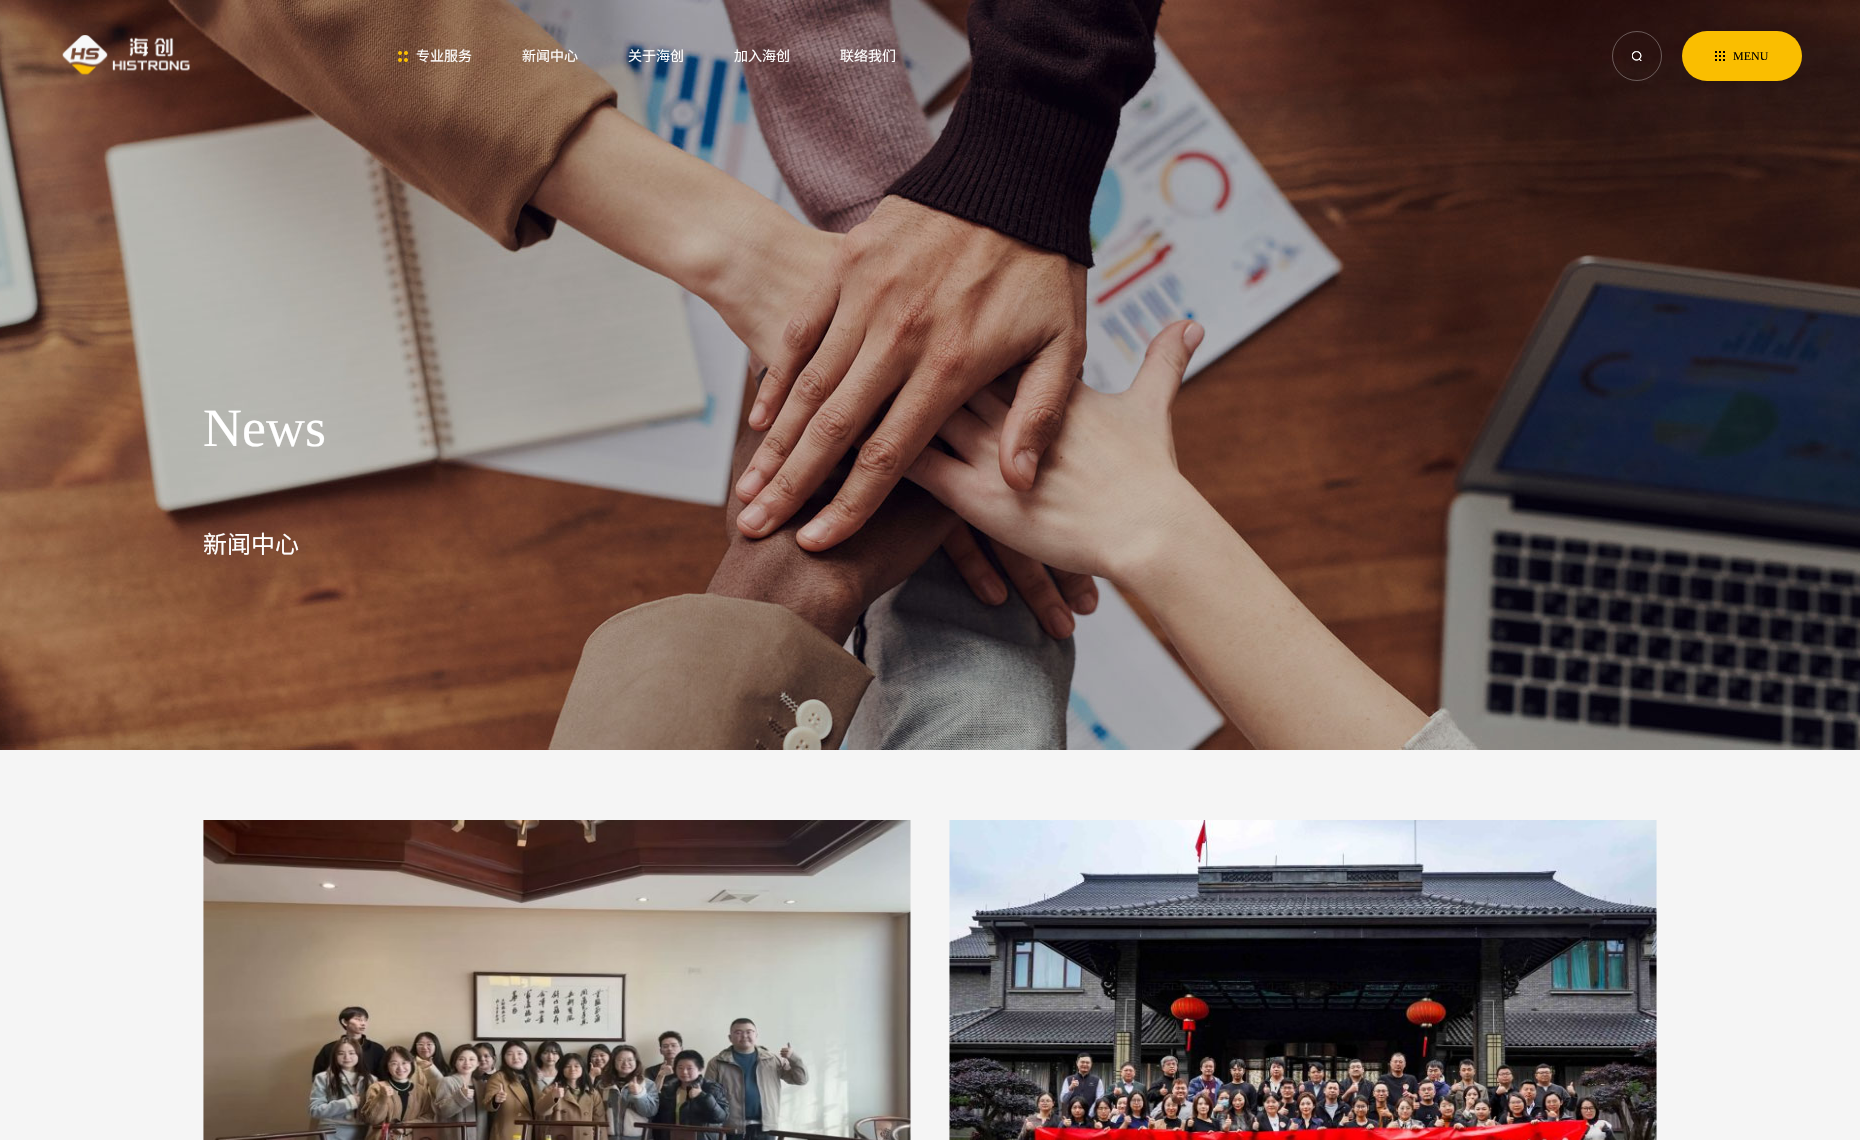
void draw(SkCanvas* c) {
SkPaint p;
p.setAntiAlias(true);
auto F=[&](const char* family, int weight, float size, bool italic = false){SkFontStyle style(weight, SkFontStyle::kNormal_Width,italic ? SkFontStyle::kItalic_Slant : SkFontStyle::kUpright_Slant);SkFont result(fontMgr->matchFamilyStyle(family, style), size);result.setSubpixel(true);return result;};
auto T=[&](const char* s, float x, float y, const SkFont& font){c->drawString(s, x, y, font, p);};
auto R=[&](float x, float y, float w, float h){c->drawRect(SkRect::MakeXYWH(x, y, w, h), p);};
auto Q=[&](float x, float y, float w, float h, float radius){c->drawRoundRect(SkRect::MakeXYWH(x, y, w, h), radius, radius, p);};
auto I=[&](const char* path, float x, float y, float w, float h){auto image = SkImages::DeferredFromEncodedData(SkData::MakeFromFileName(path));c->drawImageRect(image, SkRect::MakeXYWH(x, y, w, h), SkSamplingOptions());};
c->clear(0xffffffff);
I("5.png",0,0,1860,750);
I("1.png",62,35,128,40);
I("2.png",398,51,10,11);
auto f1 = F("Noto Sans CJK SC",400,14);
p.setColor(0xffffffff);
T("专业服务",416,61,f1);
T("新闻中心",522,61,f1);
T("关于海创",628,61,f1);
T("加入海创",734,61,f1);
T("联络我们",840,61,f1);
p.setStroke(true);
p.setStrokeWidth(1);
p.setColor(0x4dffffff);
c->drawCircle(1637,56,24.5,p);
I("3.png",1632,51,10,10);
p.setStroke(false);
p.setColor(0xfffabe00);
Q(1682,31,120,50,25);
I("4.png",1715,51,10,10);
auto f2 = F("Liberation Serif",400,12);
p.setColor(0xff000000);
T("MENU",1733,60,f2);
auto f3 = F("Liberation Serif",400,54);
p.setColor(0xffffffff);
T("News",203,446,f3);
auto f4 = F("Noto Sans CJK SC",400,24);
T("新闻中心",203,553,f4);
p.setColor(0xfff5f5f5);
R(0,750,1860,390);
I("6.png",203,820,708,320);
I("7.png",949,820,708,320);
}
